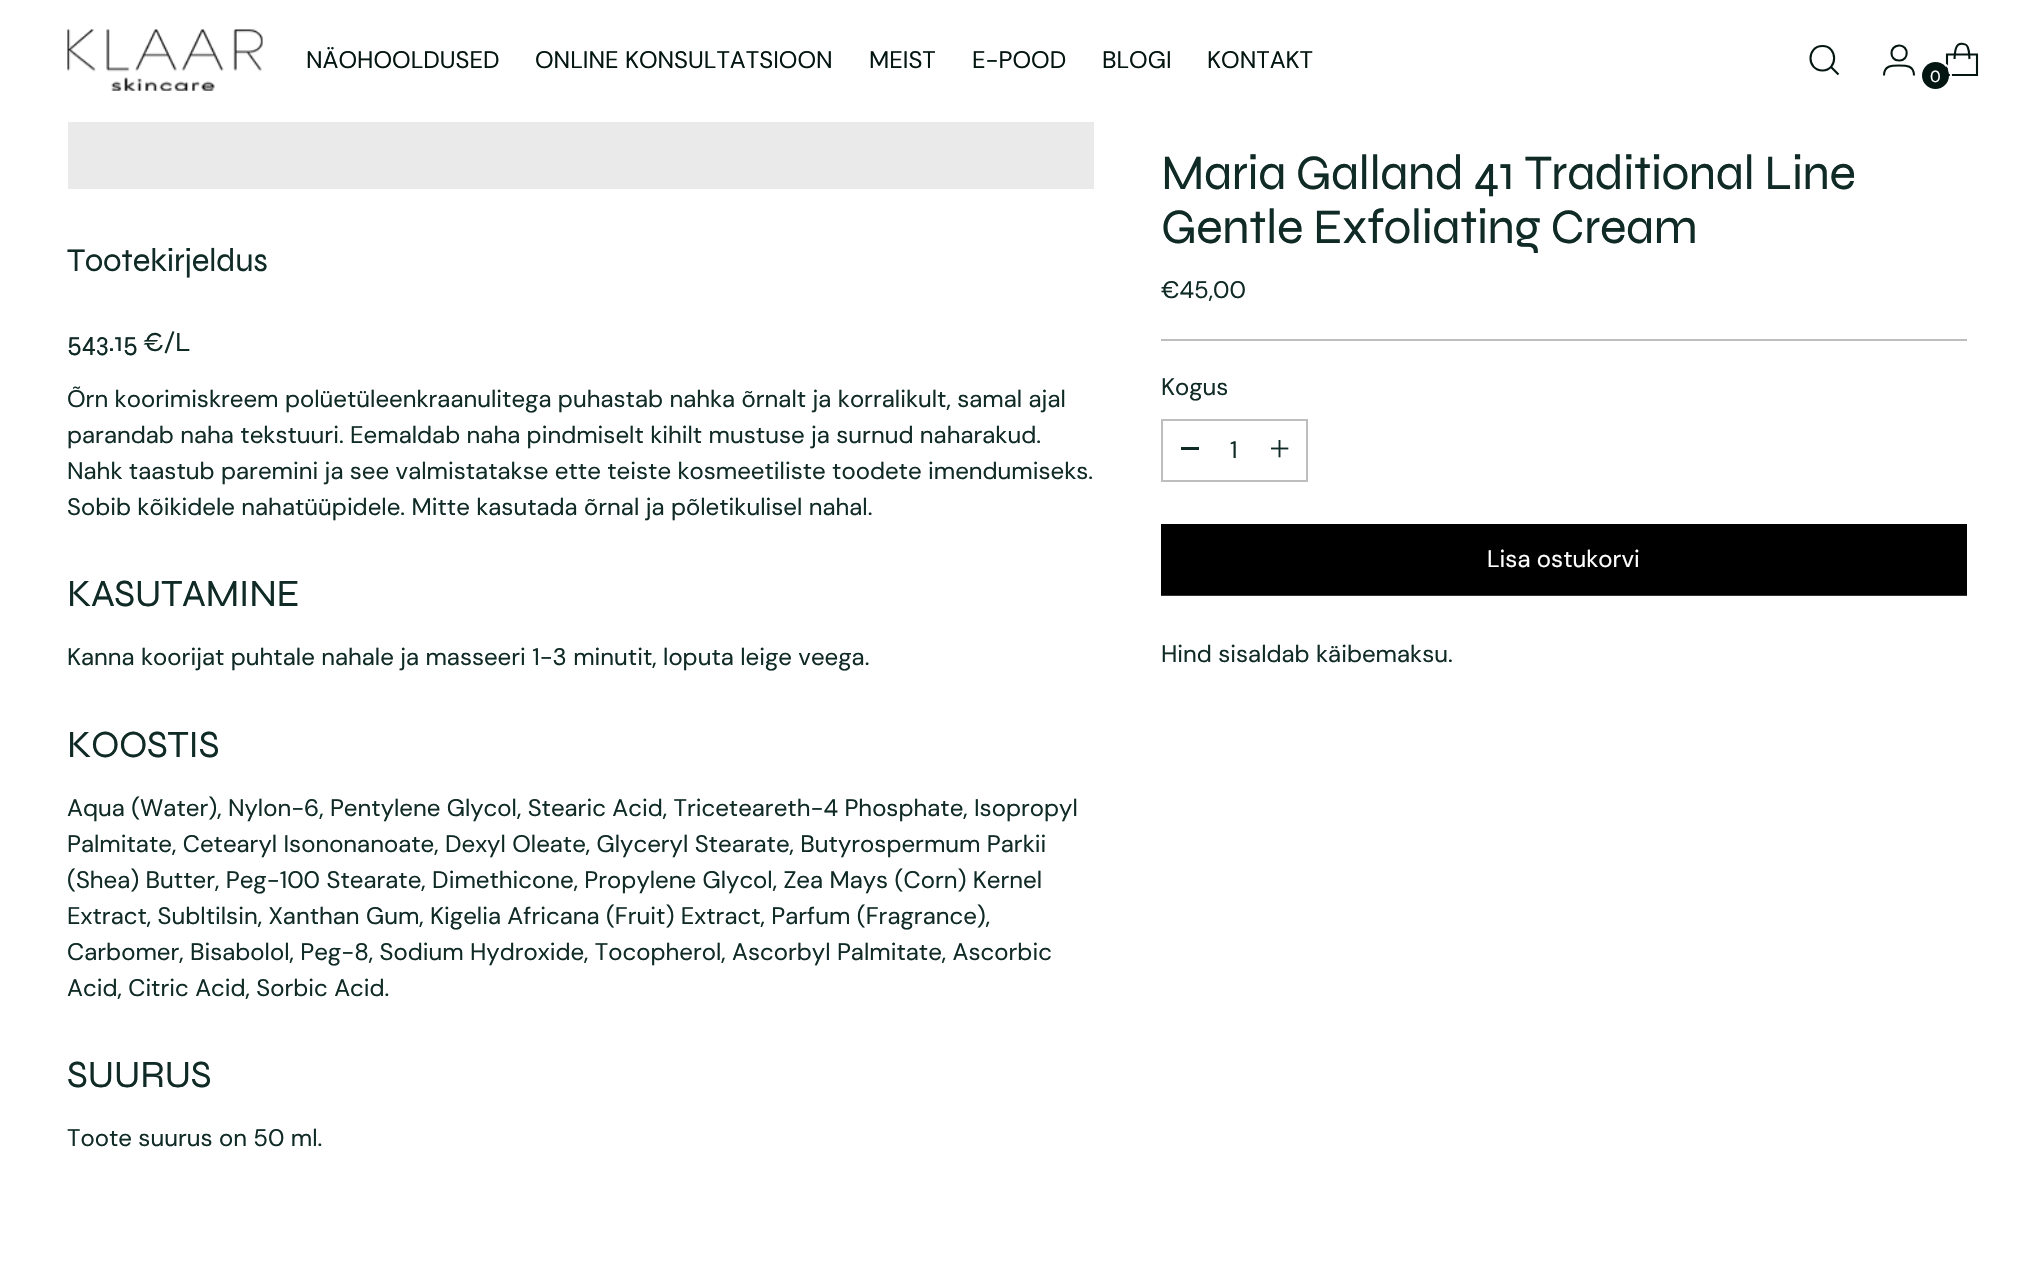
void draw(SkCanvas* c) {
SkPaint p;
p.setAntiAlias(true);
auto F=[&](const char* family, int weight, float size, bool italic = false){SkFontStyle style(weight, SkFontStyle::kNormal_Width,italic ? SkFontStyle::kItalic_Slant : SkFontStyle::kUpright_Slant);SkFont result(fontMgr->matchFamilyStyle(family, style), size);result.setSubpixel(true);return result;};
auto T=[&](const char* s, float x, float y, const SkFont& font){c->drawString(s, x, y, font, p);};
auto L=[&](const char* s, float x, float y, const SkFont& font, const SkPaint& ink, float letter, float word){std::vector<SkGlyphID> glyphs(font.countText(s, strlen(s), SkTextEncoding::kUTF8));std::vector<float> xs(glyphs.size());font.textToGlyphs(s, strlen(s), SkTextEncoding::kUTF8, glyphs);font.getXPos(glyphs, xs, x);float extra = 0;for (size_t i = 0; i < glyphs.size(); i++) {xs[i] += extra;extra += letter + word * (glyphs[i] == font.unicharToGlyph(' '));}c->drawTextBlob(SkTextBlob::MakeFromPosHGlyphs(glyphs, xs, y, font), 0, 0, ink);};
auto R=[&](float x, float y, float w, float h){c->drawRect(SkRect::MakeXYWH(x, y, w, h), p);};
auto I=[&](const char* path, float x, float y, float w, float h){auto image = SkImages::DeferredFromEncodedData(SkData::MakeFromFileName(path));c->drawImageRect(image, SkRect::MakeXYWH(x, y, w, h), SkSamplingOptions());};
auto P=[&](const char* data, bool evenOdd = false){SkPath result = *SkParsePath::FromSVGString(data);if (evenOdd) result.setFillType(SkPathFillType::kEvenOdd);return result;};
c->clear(0xffffffff);
I("1.png",67,29,196,62);
auto f1 = F("DM Sans",400,24);
p.setColor(0xff031612);
T("NÄOHOOLDUSED",306,68,f1);
T("ONLINE KONSULTATSIOON",535,68,f1);
T("MEIST",869,68,f1);
T("E-POOD",972,68,f1);
T("BLOGI",1102,68,f1);
T("KONTAKT",1207,68,f1);
p.setStroke(true);
p.setStrokeWidth(2.1);
p.setStrokeCap(SkPaint::kRound_Cap);
c->drawPath(P("M1822.5 70.5c15.5 0 15.5-24.5 0-24.5c-16 0-16 24.5 0 24.5z"),p);
p.setStrokeCap(SkPaint::kButt_Cap);
c->drawPath(P("M1831 67l7.5 7.5"),p);
c->drawPath(P("M1899 60.5c10.5 .5 10-15.5 0-15c-10 .5-10 15 0 15zm-15 15c0-10 7.5-10 15-10c7.5 0 15 0 15 10"),p);
p.setStrokeJoin(SkPaint::kBevel_Join);
c->drawPath(P("M1969.5 59c-.5-3.5 0-7.5-1.5-11c-.5-2-2.5-4-4.5-4c-9-2-8.5 9.5-9 15"),p);
p.setStrokeJoin(SkPaint::kMiter_Join);
c->drawPath(P("M1977 75v-20.5h-30v20.5z"),p);
p.setStrokeWidth(2);
p.setColor(0xffffffff);
c->drawCircle(1936,76,15,p);
p.setStroke(false);
p.setColor(0xff031612);
c->drawCircle(1935.5,75.5,13.5,p);
auto f2 = F("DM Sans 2",400,16);
p.setColor(0xffffffff);
T("0",1930,82,f2);
p.setColor(0xffeaeaea);
R(68,122,1026,67);
auto f3 = F("Syne",400,33);
p.setColor(0xff102b26);
L("Tootekirjeldus",67,271,f3,p,-.3,0);
auto f4 = F("Syne",400,27.5);
L("543.15 €/L",67,351,f4,p,-.25,0);
T("Õrn koorimiskreem polüetüleenkraanulitega puhastab nahka õrnalt ja korralikult, samal ajal",67,407,f1);
T("parandab naha tekstuuri. Eemaldab naha pindmiselt kihilt mustuse ja surnud naharakud.",67,443,f1);
T("Nahk taastub paremini ja see valmistatakse ette teiste kosmeetiliste toodete imendumiseks.",67,479,f1);
T("Sobib kõikidele nahatüüpidele. Mitte kasutada õrnal ja põletikulisel nahal.",67,515,f1);
auto f5 = F("Syne",400,38.5);
L("KASUTAMINE",67,606,f5,p,-.4,0);
T("Kanna koorijat puhtale nahale ja masseeri 1-3 minutit, loputa leige veega.",67,665,f1);
L("KOOSTIS",67,757,f5,p,-.4,0);
T("Aqua (Water), Nylon-6, Pentylene Glycol, Stearic Acid, Triceteareth-4 Phosphate, Isopropyl",67,816,f1);
T("Palmitate, Cetearyl Isononanoate, Dexyl Oleate, Glyceryl Stearate, Butyrospermum Parkii",67,852,f1);
T("(Shea) Butter, Peg-100 Stearate, Dimethicone, Propylene Glycol, Zea Mays (Corn) Kernel",67,888,f1);
T("Extract, Subltilsin, Xanthan Gum, Kigelia Africana (Fruit) Extract, Parfum (Fragrance),",67,924,f1);
T("Carbomer, Bisabolol, Peg-8, Sodium Hydroxide, Tocopherol, Ascorbyl Palmitate, Ascorbic",67,960,f1);
T("Acid, Citric Acid, Sorbic Acid.",67,996,f1);
L("SUURUS",67,1087,f5,p,-.4,0);
T("Toote suurus on 50 ml.",67,1146,f1);
p.setColor(0xffbdbfbf);
R(1161,339,806,2);
auto f6 = F("Syne",400,49.5);
p.setColor(0xff102b26);
L("Maria Galland 41 Traditional Line",1161,189,f6,p,-.5,0);
L("Gentle Exfoliating Cream",1161,243,f6,p,-.5,0);
T("€45,00",1161,298,f1);
T("Kogus",1161,395,f1);
p.setStroke(true);
p.setColor(0xffbdbfbf);
c->drawRect(SkRect::MakeXYWH(1162,420,145,61),p);
p.setStroke(false);
p.setColor(0xff102b26);
R(1181,447,18,3);
T("1",1230,458,f1);
I("2.png",1271,440,18,18);
c->save();
c->clipRect(SkRect::MakeXYWH(1161,524,806,72));
p.setColor(0xff000000);
c->drawPath(P("M1019 523h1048l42 72h-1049z"),p);
c->restore();
p.setColor(0xffffffff);
T("Lisa ostukorvi",1487,567,f1);
p.setColor(0xff333333);
R(1161,595,806,1);
p.setColor(0xff102b26);
T("Hind sisaldab käibemaksu.",1161,662,f1);
}
